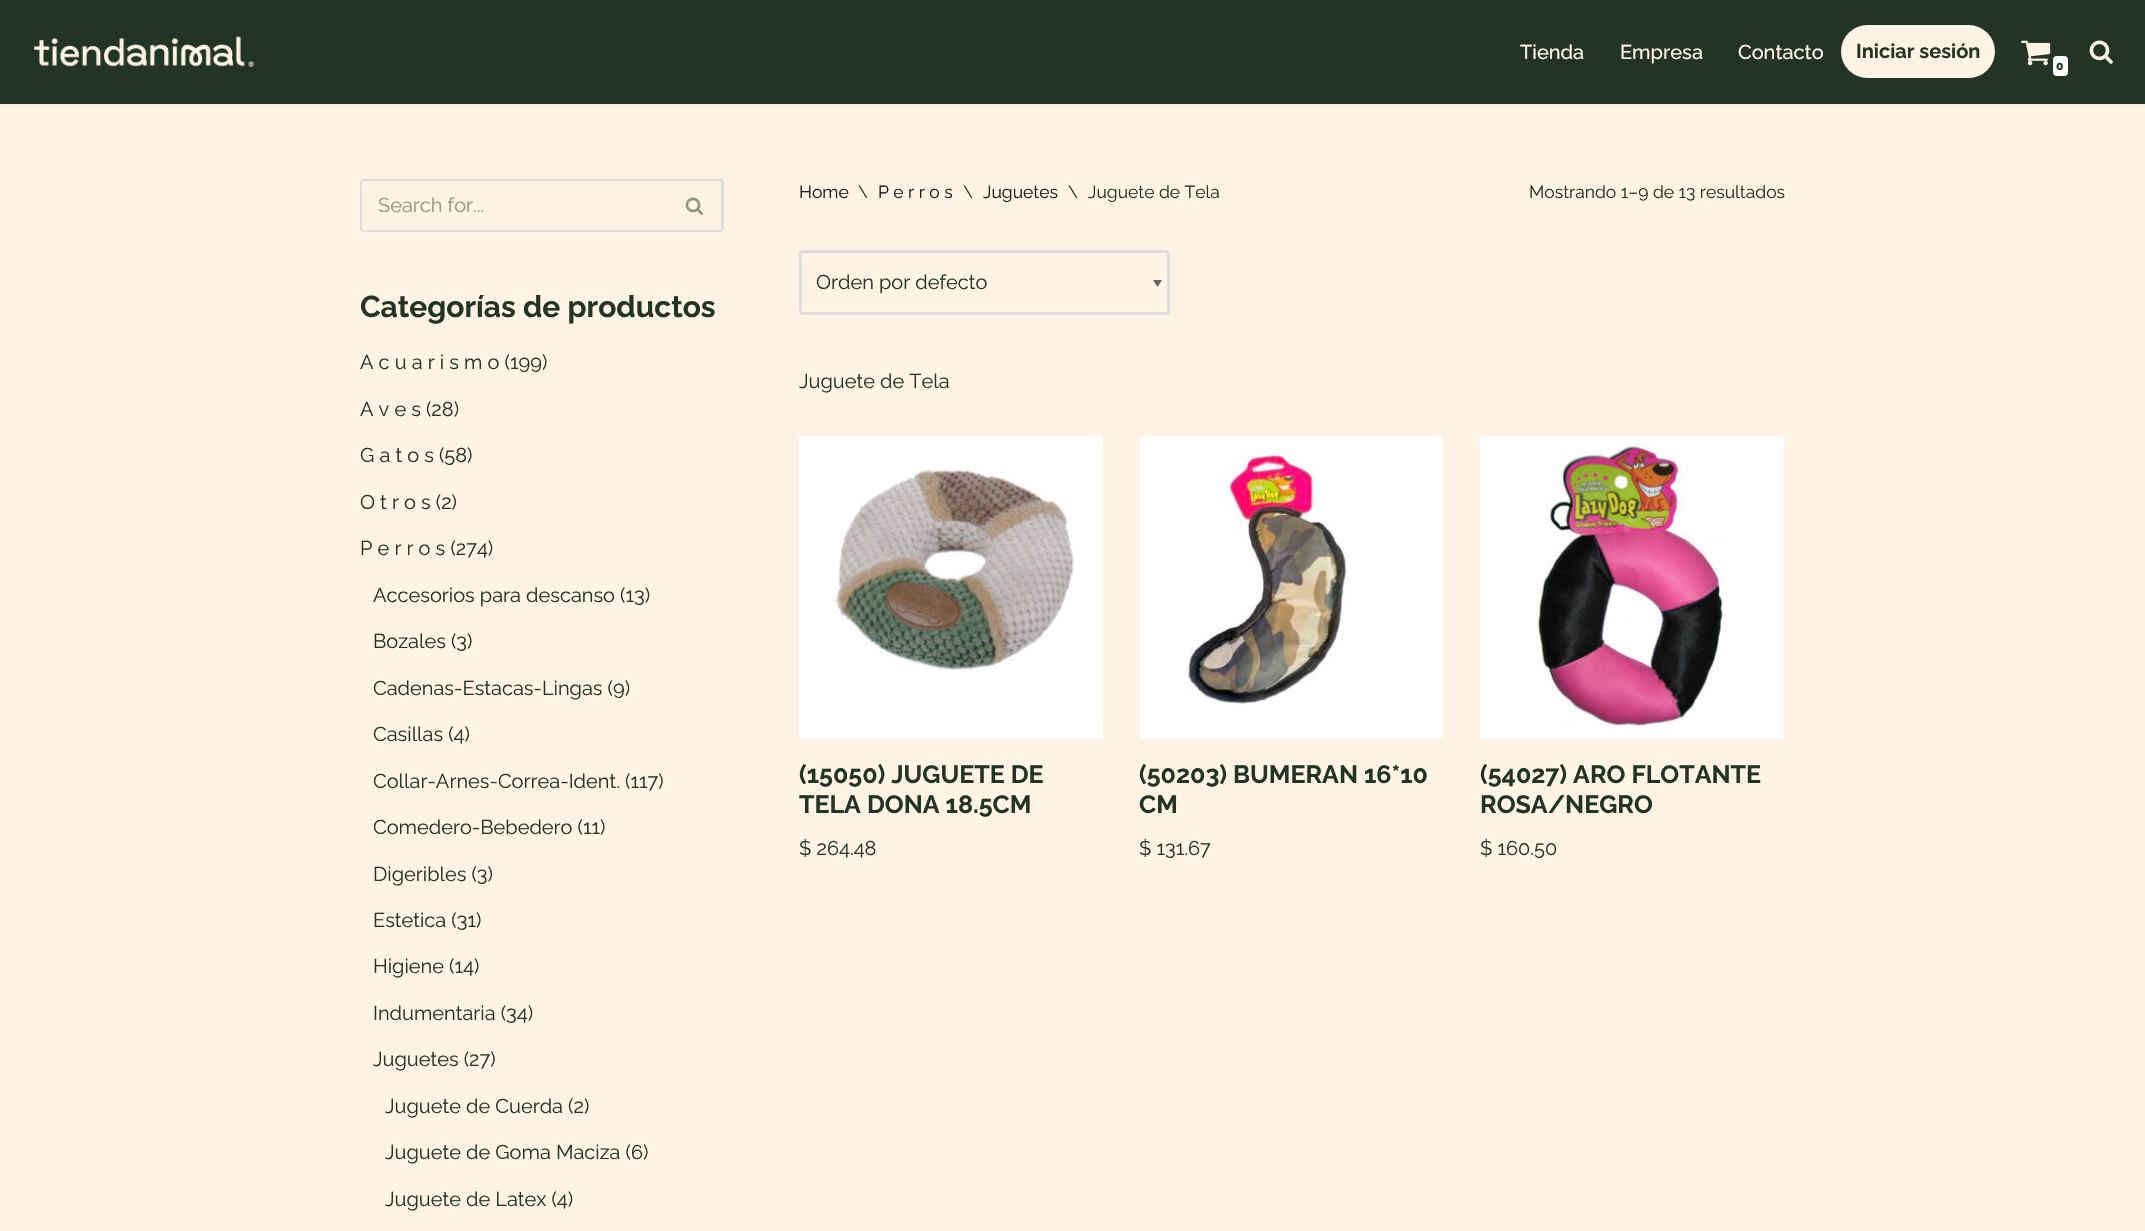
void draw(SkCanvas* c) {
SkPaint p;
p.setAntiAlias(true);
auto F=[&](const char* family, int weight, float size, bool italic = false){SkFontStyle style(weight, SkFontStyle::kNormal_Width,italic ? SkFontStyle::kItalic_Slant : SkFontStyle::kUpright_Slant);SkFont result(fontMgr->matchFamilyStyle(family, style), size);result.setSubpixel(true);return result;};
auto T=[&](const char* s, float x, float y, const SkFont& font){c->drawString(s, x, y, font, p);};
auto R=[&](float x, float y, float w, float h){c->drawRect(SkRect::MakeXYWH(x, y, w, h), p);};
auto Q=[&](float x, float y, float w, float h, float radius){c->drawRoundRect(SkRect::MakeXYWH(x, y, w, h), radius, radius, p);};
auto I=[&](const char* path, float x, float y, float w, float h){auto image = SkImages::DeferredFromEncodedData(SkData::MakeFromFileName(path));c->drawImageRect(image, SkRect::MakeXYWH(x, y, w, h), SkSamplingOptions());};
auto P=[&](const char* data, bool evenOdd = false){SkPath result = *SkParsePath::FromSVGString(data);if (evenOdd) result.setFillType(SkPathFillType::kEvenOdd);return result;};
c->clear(0xfffff4e3);
p.setColor(0x1a000000);
p.setMaskFilter(SkMaskFilter::MakeBlur(kNormal_SkBlurStyle, 2));
c->drawRect(SkRect::MakeXYWH(0,-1,2145,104),p);
p.setMaskFilter(nullptr);
p.setColor(0xff223525);
R(0,0,2145,104);
I("1.png",33,36,222,32);
auto f1 = F("Raleway",500,20);
p.setColor(0xfffff4e3);
T("Tienda",1520,59,f1);
T("Empresa",1620,59,f1);
T("Contacto",1738,59,f1);
Q(1841,25,154,53,26.5);
auto f2 = F("Raleway",700,20);
p.setColor(0xff223525);
T("Iniciar sesión",1856,58,f2);
I("2.png",2089,40,24,24);
I("3.png",2021,40,30,26);
p.setColor(0xffffffff);
Q(2053,56,15,20,4);
auto f3 = F("Raleway",800,12);
p.setColor(0xff223525);
T("0",2056,70,f3);
p.setColor(0xffdddddd);
c->drawPath(P("M364 179h304v53h-304c-2 0-4-1-4-3v-47c0-2 2-3 4-3zm0 2h304v49h-304c-1 0-2-1-2-1v-47c0 0 1-1 2-1z",true),p);
auto f4 = F("Raleway",400,20);
p.setColor(0xff919584);
T("Search for...",378,212,f4);
p.setColor(0xffdddddd);
c->drawPath(P("M668 179h52c2 0 4 1 4 3v47c0 2-2 3-4 3h-52zm0 2h52c1 0 1 1 1 1v47c0 0 0 1-1 1h-52z",true),p);
I("4.png",685,197,18,18);
auto f5 = F("Raleway",700,30);
p.setColor(0xff223525);
T("Categorías de productos",360,317,f5);
T("A c u a r i s m o (199)",360,369,f4);
T("A v e s (28)",360,416,f4);
T("G a t o s (58)",360,462,f4);
T("O t r o s (2)",360,509,f4);
T("P e r r o s (274)",360,555,f4);
T("Accesorios para descanso (13)",373,602,f4);
T("Bozales (3)",373,648,f4);
T("Cadenas-Estacas-Lingas (9)",373,695,f4);
T("Casillas (4)",373,741,f4);
T("Collar-Arnes-Correa-Ident. (117)",373,788,f4);
T("Comedero-Bebedero (11)",373,834,f4);
T("Digeribles (3)",373,881,f4);
T("Estetica (31)",373,927,f4);
T("Higiene (14)",373,973,f4);
T("Indumentaria (34)",373,1020,f4);
T("Juguetes (27)",373,1066,f4);
T("Juguete de Cuerda (2)",385,1113,f4);
T("Juguete de Goma Maciza (6)",385,1159,f4);
T("Juguete de Latex (4)",385,1206,f4);
auto f6 = F("Raleway",400,17.5);
p.setColor(0xff191919);
T("Home",799,198,f6);
p.setColor(0xff223525);
T("\\",858,198,f6);
p.setColor(0xff191919);
T("P e r r o s",878,198,f6);
p.setColor(0xff223525);
T("\\",963,198,f6);
p.setColor(0xff191919);
T("Juguetes",983,198,f6);
p.setColor(0xff223525);
T("\\",1068,198,f6);
T("Juguete de Tela",1088,198,f6);
T("Mostrando 1–9 de 13 resultados",1529,198,f6);
p.setColor(0xff626262);
c->drawPath(P("M1162 280l-4.5 7l-4.5-7z"),p);
p.setStroke(true);
p.setStrokeWidth(3);
p.setColor(0xffdddddd);
c->drawRoundRect(SkRect::MakeXYWH(800.5,251.5,368,62),2.5,2.5,p);
p.setStroke(false);
p.setColor(0xff223525);
T("Orden por defecto",816,289,f4);
T("Juguete de Tela",799,388,f4);
I("5.png",798,436,305,303);
auto f7 = F("Raleway",700,25);
T("(15050) JUGUETE DE",799,783,f7);
T("TELA DONA 18.5CM",799,813,f7);
T("$ 264.48",799,855,f4);
I("6.png",1140,436,303,303);
T("(50203) BUMERAN 16*10",1139,783,f7);
T("CM",1139,813,f7);
T("$ 131.67",1139,855,f4);
I("7.png",1480,436,304,303);
T("(54027) ARO FLOTANTE",1480,783,f7);
T("ROSA/NEGRO",1480,813,f7);
T("$ 160.50",1480,855,f4);
}
